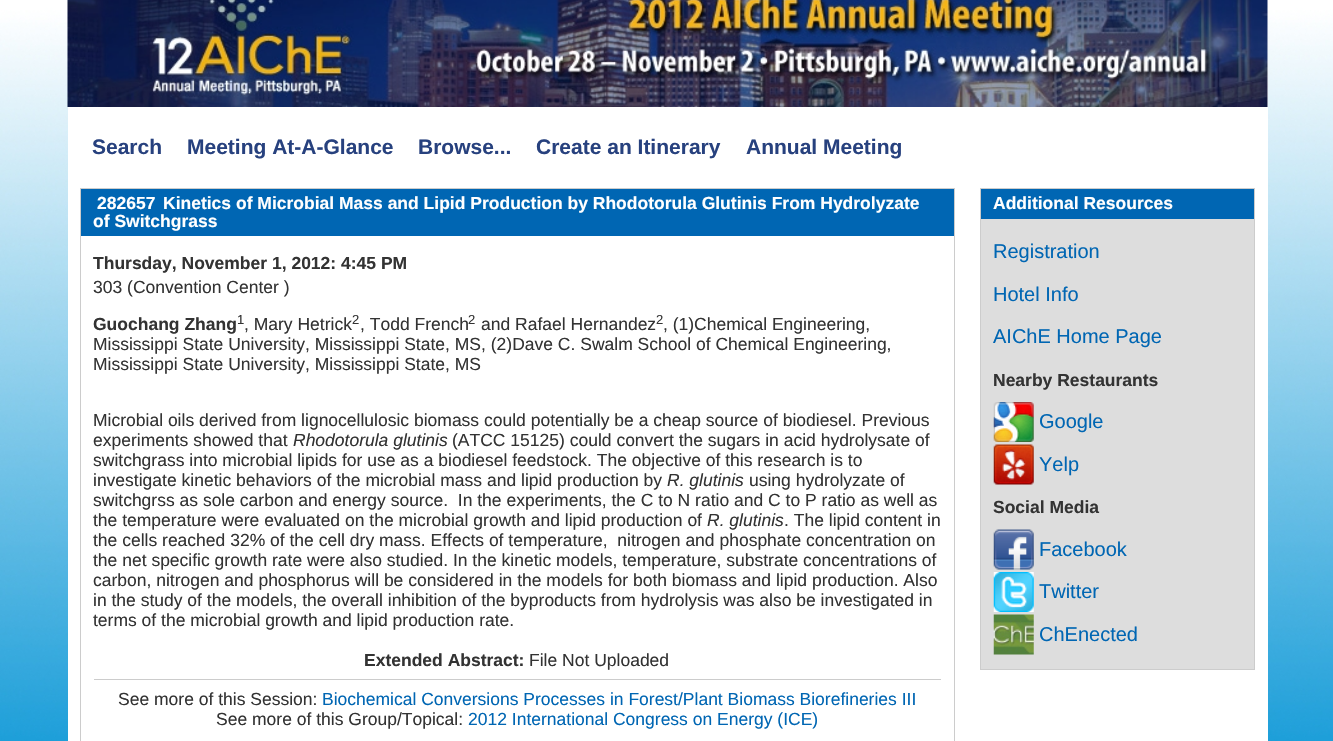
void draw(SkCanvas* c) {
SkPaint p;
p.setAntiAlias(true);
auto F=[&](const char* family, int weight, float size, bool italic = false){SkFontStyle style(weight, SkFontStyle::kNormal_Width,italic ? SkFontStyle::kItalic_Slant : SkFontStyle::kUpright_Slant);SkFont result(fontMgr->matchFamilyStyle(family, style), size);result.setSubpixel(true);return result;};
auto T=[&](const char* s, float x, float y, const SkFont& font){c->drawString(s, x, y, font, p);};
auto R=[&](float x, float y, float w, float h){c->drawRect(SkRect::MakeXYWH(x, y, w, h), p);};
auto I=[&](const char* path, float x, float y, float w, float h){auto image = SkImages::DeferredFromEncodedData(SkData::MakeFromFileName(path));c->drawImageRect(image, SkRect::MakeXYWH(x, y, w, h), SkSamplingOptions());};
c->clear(0xffffffff);
I("1.png",0,0,1333,741);
p.setColor(0xffffffff);
R(68,10,1200,731);
I("2.png",67,0,1201,107);
auto f1 = F("Liberation Sans",700,21);
p.setColor(0xff27417e);
T("Search",92,154,f1);
T("Meeting At-A-Glance",187,154,f1);
T("Browse...",418,154,f1);
T("Create an Itinerary",536,154,f1);
T("Annual Meeting",746,154,f1);
p.setStroke(true);
p.setStrokeWidth(1);
p.setColor(0xffcccccc);
c->drawRect(SkRect::MakeXYWH(80.5,188.5,874,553),p);
p.setStroke(false);
p.setColor(0xff0066b3);
R(81,189,873,47);
auto f2 = F("Liberation Sans",700,17.5);
p.setColor(0xffffffff);
T("282657",97,209,f2);
T("Kinetics of Microbial Mass and Lipid Production by Rhodotorula Glutinis From Hydrolyzate",163,209,f2);
T("of Switchgrass",93,227,f2);
p.setColor(0xff333333);
T("Thursday, November 1, 2012: 4:45 PM",93,269,f2);
auto f3 = F("Liberation Sans",400,17.5);
T("303 (Convention Center )",93,293,f3);
T("Guochang Zhang",93,330,f2);
auto f4 = F("Liberation Sans",400,13);
T("1",237,324,f4);
T(", Mary Hetrick",244,330,f3);
T("2",352,324,f4);
T(", Todd French",360,330,f3);
T("2",468,324,f4);
T("and Rafael Hernandez",481,330,f3);
T("2",656,324,f4);
T(", (1)Chemical Engineering,",663,330,f3);
T("Mississippi State University, Mississippi State, MS, (2)Dave C. Swalm School of Chemical Engineering,",93,350,f3);
T("Mississippi State University, Mississippi State, MS",93,370,f3);
T("Microbial oils derived from lignocellulosic biomass could potentially be a cheap source of biodiesel. Previous",93,426,f3);
T("experiments showed that",93,446,f3);
auto f5 = F("Liberation Sans",400,17.5,true);
T("Rhodotorula glutinis",293,446,f5);
T("(ATCC 15125) could convert the sugars in acid hydrolysate of",452,446,f3);
T("switchgrass into microbial lipids for use as a biodiesel feedstock. The objective of this research is to",93,466,f3);
T("investigate kinetic behaviors of the microbial mass and lipid production by",93,486,f3);
T("R. glutinis",667,486,f5);
T("using hydrolyzate of",749,486,f3);
T("switchgrss as sole carbon and energy source.  In the experiments, the C to N ratio and C to P ratio as well as",93,506,f3);
T("the temperature were evaluated on the microbial growth and lipid production of",93,526,f3);
T("R. glutinis",707,526,f5);
T(". The lipid content in",784,526,f3);
T("the cells reached 32% of the cell dry mass. Effects of temperature,  nitrogen and phosphate concentration on",93,546,f3);
T("the net specific growth rate were also studied. In the kinetic models, temperature, substrate concentrations of",93,566,f3);
T("carbon, nitrogen and phosphorus will be considered in the models for both biomass and lipid production. Also",93,586,f3);
T("in the study of the models, the overall inhibition of the byproducts from hydrolysis was also be investigated in",93,606,f3);
T("terms of the microbial growth and lipid production rate.",93,626,f3);
T("Extended Abstract:",364,666,f2);
T("File Not Uploaded",529,666,f3);
p.setColor(0xffcccccc);
R(94,679,847,1);
p.setColor(0xff333333);
T("See more of this Session:",118,705,f3);
p.setColor(0xff0066b3);
T("Biochemical Conversions Processes in Forest/Plant Biomass Biorefineries III",322,705,f3);
p.setColor(0xff333333);
T("See more of this Group/Topical:",216,725,f3);
p.setColor(0xff0066b3);
T("2012 International Congress on Energy (ICE)",468,725,f3);
p.setColor(0xffdddddd);
R(981,219,273,450);
p.setStroke(true);
p.setColor(0xffcccccc);
c->drawRect(SkRect::MakeXYWH(980.5,188.5,274,481),p);
p.setStroke(false);
p.setColor(0xff0066b3);
R(981,189,273,30);
p.setColor(0xffffffff);
T("Additional Resources",993,209,f2);
auto f6 = F("Liberation Sans",400,20);
p.setColor(0xff0066b3);
T("Registration",993,258,f6);
T("Hotel Info",993,301,f6);
T("AIChE Home Page",993,343,f6);
p.setColor(0xff333333);
T("Nearby Restaurants",993,386,f2);
I("3.png",993,402,41,40);
p.setColor(0xff0066b3);
T("Google",1039,428,f6);
I("4.png",993,444,41,41);
T("Yelp",1039,471,f6);
p.setColor(0xff333333);
T("Social Media",993,513,f2);
I("5.png",993,529,41,41);
p.setColor(0xff0066b3);
T("Facebook",1039,556,f6);
I("6.png",993,572,41,40);
T("Twitter",1039,598,f6);
I("7.png",993,614,41,41);
T("ChEnected",1039,641,f6);
}
